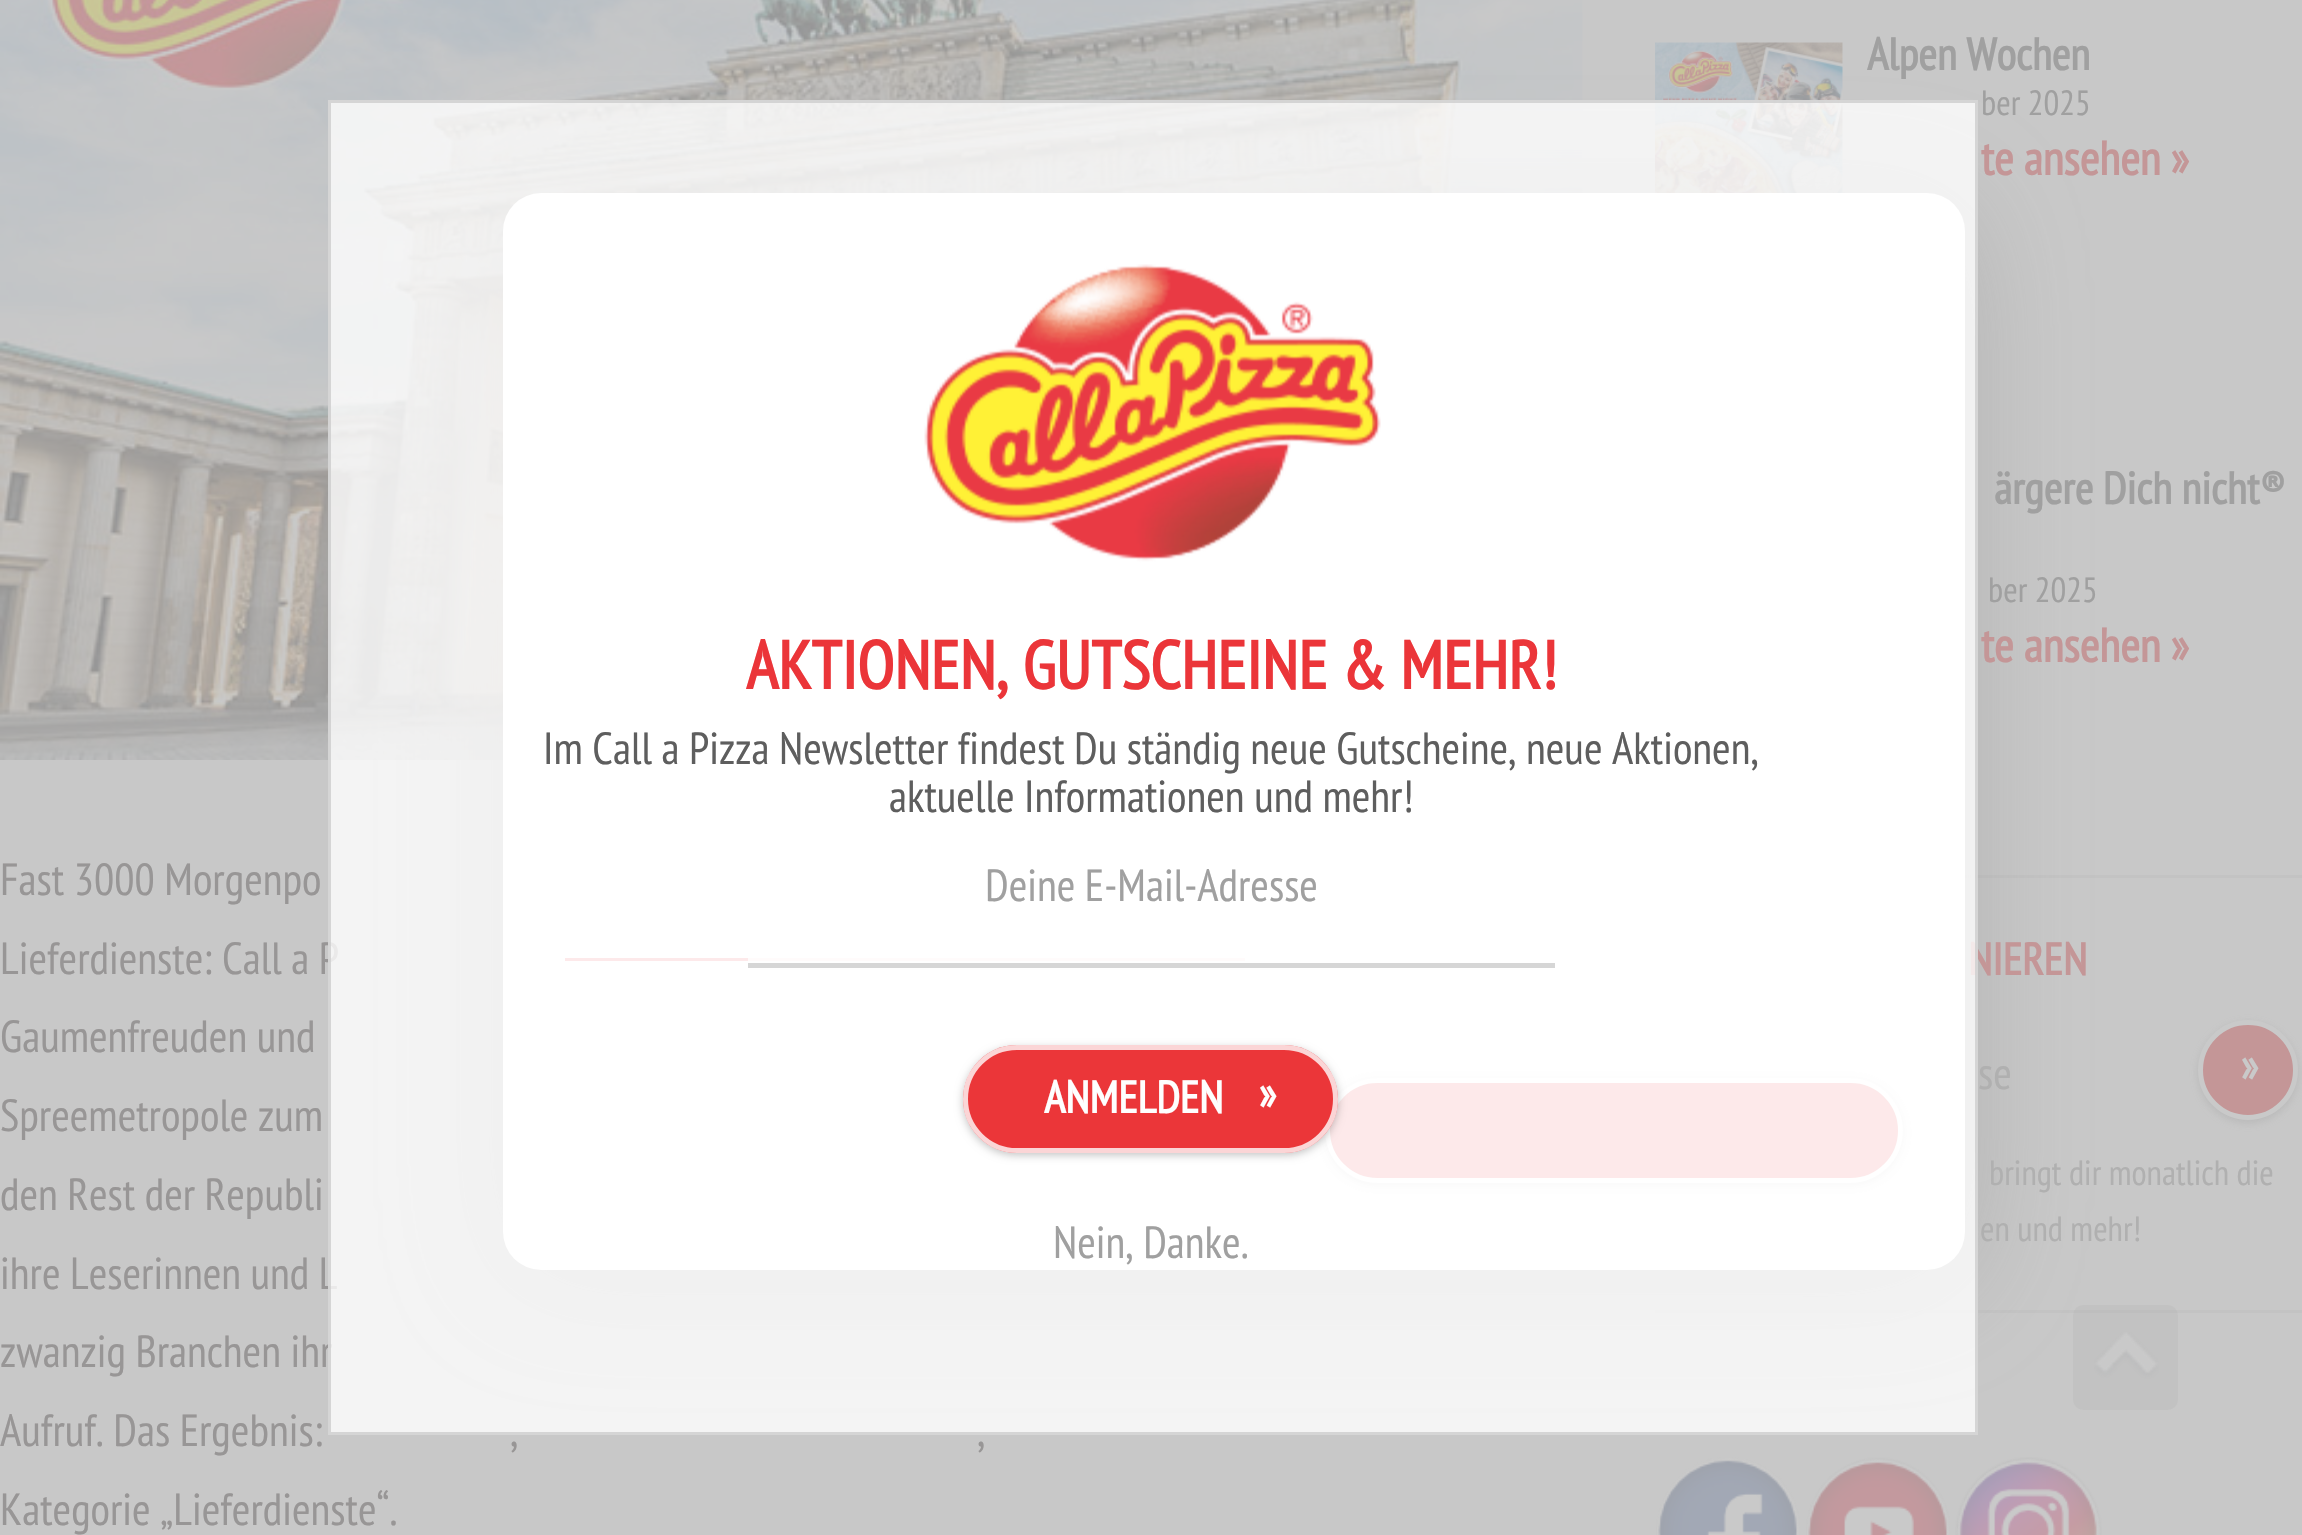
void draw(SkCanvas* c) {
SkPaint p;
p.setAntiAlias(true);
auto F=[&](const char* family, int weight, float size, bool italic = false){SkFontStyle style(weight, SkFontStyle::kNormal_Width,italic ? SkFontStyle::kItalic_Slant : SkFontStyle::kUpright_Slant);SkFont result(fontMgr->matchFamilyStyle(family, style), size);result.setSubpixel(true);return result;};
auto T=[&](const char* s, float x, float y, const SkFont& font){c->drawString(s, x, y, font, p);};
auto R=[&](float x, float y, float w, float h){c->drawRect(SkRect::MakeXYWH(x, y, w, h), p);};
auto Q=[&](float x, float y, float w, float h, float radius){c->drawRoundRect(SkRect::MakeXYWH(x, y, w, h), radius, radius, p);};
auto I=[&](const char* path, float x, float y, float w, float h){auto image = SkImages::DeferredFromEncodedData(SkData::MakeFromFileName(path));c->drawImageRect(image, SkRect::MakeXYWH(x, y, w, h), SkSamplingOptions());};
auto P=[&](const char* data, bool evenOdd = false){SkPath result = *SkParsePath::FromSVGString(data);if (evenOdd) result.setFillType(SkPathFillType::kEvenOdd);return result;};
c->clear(0xffc8c8c8);
I("1.png",0,0,1583,760);
p.setColor(0xffc3c3c3);
R(1965,875,337,3);
I("2.png",1655,42,188,151);
R(1655,1310,647,3);
I("3.png",1656,1457,144,78);
I("4.png",1657,1457,143,78);
I("5.png",1806,1457,144,78);
I("6.png",1807,1459,143,76);
I("7.png",1955,1457,147,78);
I("8.png",1957,1459,143,76);
p.setColor(0x1a969696);
Q(2073,1305,105,105,10);
I("10.png",2094,1332,65,47);
p.setColor(0x80969696);
p.setMaskFilter(SkMaskFilter::MakeBlur(kNormal_SkBlurStyle, 62.5));
c->drawRoundRect(SkRect::MakeXYWH(503,205,1462,1078),38,38,p);
p.setMaskFilter(nullptr);
p.setColor(0xfffcfcfc);
Q(503,193,1462,1077,38);
p.setColor(0xfff29698);
R(565,958,680,3);
p.setColor(0x4d969696);
p.setMaskFilter(SkMaskFilter::MakeBlur(kNormal_SkBlurStyle, 4));
c->drawRoundRect(SkRect::MakeXYWH(1325,1080,578,105),52.5,52.5,p);
p.setMaskFilter(nullptr);
p.setColor(0xfff29698);
c->drawRoundRect(SkRect::MakeXYWH(1327.5,1080.5,573,100),50,50,p);
p.setStroke(true);
p.setStrokeWidth(5);
p.setColor(0xfffcfcfc);
c->drawRoundRect(SkRect::MakeXYWH(1327.5,1080.5,573,100),50,50,p);
auto f1 = F("PT Sans Narrow",400,45);
p.setStroke(false);
p.setColor(0xff989696);
T("Fast 3000 Morgenpo",0,895,f1);
T("Lieferdienste: Call a P",0,974,f1);
T("Gaumenfreuden und",0,1052,f1);
T("Spreemetropole zum",0,1131,f1);
T("den Rest der Republi",0,1210,f1);
T("ihre Leserinnen und L",0,1289,f1);
T("zwanzig Branchen ihr",0,1367,f1);
T("Aufruf. Das Ergebnis:",0,1446,f1);
T(",",510,1446,f1);
T(",",977,1446,f1);
T("Kategorie „Lieferdienste“.",0,1525,f1);
auto f2 = F("PT Sans Narrow",700,45);
p.setColor(0xffa0a0a0);
T("Alpen Wochen",1867,70,f2);
auto f3 = F("PT Sans Narrow",400,35);
T("ber 2025",1981,115,f3);
auto f4 = F("PT Sans Narrow",700,47.5);
p.setColor(0xffc49697);
T("te ansehen »",1981,175,f4);
p.setColor(0xffa0a0a0);
T("ärgere Dich nicht®",1994,504,f2);
T("ber 2025",1988,602,f3);
p.setColor(0xffc49697);
T("te ansehen »",1981,662,f4);
T("NIEREN",1968,975,f2);
p.setColor(0xffb0b0b0);
T("se",1978,1089,f1);
p.setColor(0x4d969696);
p.setMaskFilter(SkMaskFilter::MakeBlur(kNormal_SkBlurStyle, 4));
c->drawRoundRect(SkRect::MakeXYWH(2198,1023,100,100),50,50,p);
p.setMaskFilter(nullptr);
p.setColor(0xffc49697);
c->drawCircle(2248,1070,47.5,p);
p.setStroke(true);
p.setColor(0xffc9c9c9);
c->drawCircle(2248,1070,47.5,p);
p.setStroke(false);
T("»",2241,1081,f2);
p.setColor(0xffb0b0b0);
T("bringt dir monatlich die",1989,1185,f3);
T("en und mehr!",1980,1241,f3);
p.setColor(0xc9ffffff);
R(328,100,1650,1335);
p.setStroke(true);
p.setStrokeWidth(3);
p.setColor(0xc9cccccc);
c->drawRect(SkRect::MakeXYWH(329.5,101.5,1647,1332),p);
I("9.png",920,264,461,302);
auto f5 = F("PT Sans Narrow",700,67.5);
p.setStroke(false);
p.setColor(0xffeb3539);
T("AKTIONEN, GUTSCHEINE & MEHR!",746,689,f5);
p.setColor(0xff5e5e5e);
T("Im Call a Pizza Newsletter findest Du ständig neue Gutscheine, neue Aktionen,",543,764,f1);
T("aktuelle Informationen und mehr!",889,812,f1);
p.setColor(0xc9ffffff);
R(748,958,497,3);
p.setColor(0xffd6d6d6);
R(748,963,807,5);
p.setColor(0xffa0a0a0);
T("Deine E-Mail-Adresse",985,901,f1);
c->save();
c->clipPath(P("M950 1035h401v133h-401zm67 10h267c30 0 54 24 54 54c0 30-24 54-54 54h-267c-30 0-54-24-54-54c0-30 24-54 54-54z",true),true);
p.setColor(0x3d000000);
p.setMaskFilter(SkMaskFilter::MakeBlur(kNormal_SkBlurStyle, 4));
c->drawRoundRect(SkRect::MakeXYWH(963,1048,375,107),53.5,53.5,p);
p.setMaskFilter(nullptr);
c->restore();
p.setColor(0xc9e60004);
Q(963,1045,375,108,54);
p.setStroke(true);
p.setStrokeWidth(5);
p.setColor(0xc9ffffff);
c->drawRoundRect(SkRect::MakeXYWH(965.5,1047.5,370,103),51.5,51.5,p);
p.setStroke(false);
p.setColor(0xfffefefe);
T("ANMELDEN",1044,1113,f2);
T("»",1259,1109,f2);
p.setColor(0xffa0a0a0);
T("Nein, Danke.",1053,1258,f1);
}
